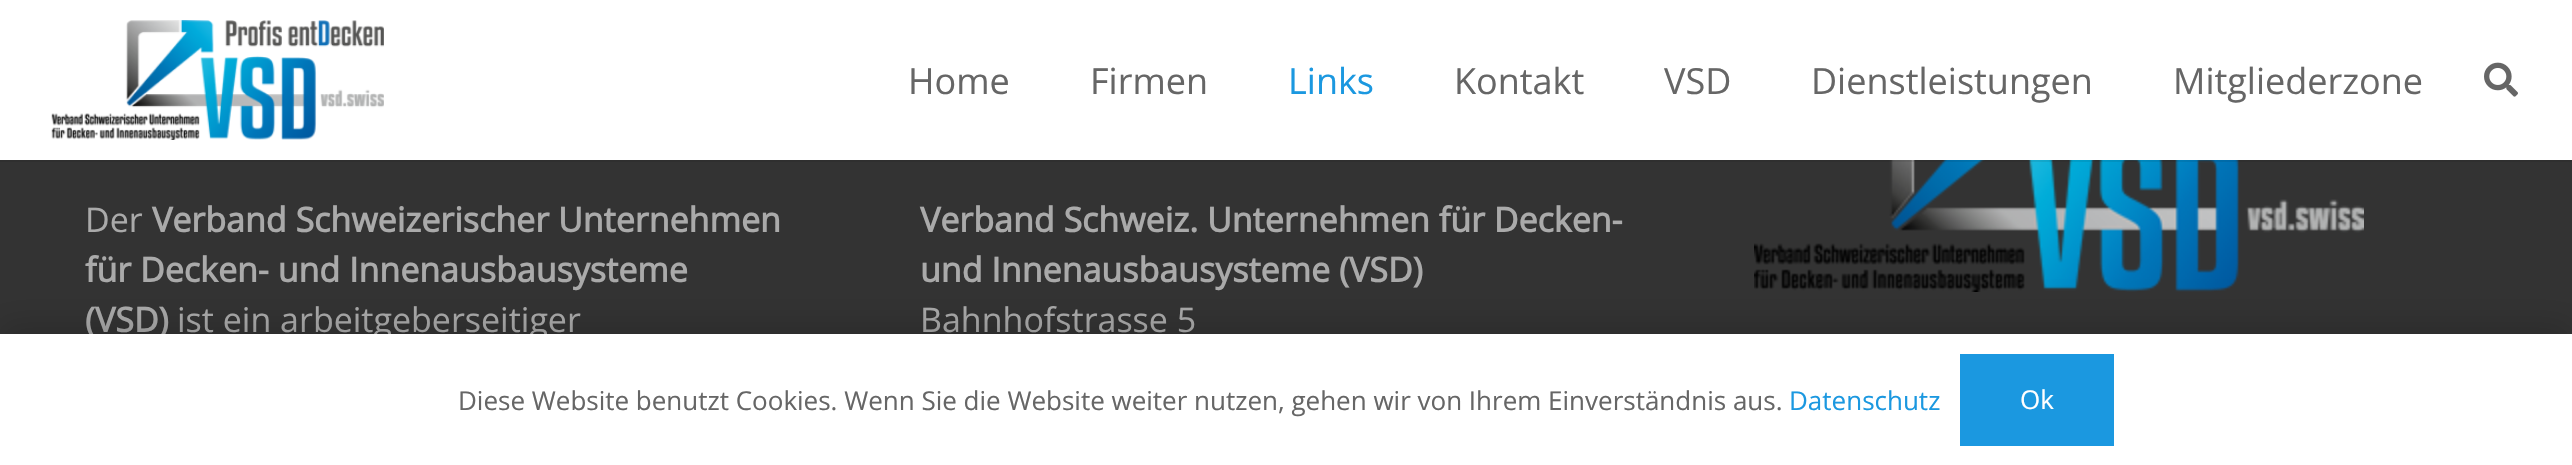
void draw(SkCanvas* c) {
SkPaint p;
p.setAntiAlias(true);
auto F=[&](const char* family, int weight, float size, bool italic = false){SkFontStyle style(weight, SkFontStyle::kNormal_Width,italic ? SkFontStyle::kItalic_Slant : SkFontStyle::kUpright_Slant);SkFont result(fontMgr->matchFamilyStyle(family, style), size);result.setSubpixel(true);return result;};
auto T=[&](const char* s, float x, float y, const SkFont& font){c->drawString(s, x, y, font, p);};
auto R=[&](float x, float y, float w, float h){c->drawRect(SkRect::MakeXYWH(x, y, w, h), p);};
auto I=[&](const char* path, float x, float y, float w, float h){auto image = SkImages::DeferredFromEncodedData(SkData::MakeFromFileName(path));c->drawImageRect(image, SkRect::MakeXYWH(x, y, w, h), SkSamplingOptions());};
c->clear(0xff333333);
I("3.png",1754,160,610,132);
p.setColor(0x14000000);
R(0,160,2572,2);
p.setColor(0xffffffff);
R(0,0,2572,160);
I("1.png",51,20,333,120);
auto f1 = F("Open Sans",400,36);
p.setColor(0xff666666);
T("Home",908,94,f1);
T("Firmen",1090,94,f1);
p.setColor(0xff1b98e0);
T("Links",1288,94,f1);
p.setColor(0xff666666);
T("Kontakt",1454,94,f1);
T("VSD",1664,94,f1);
T("Dienstleistungen",1811,94,f1);
T("Mitgliederzone",2173,94,f1);
I("2.png",2484,62,34,35);
auto f2 = F("Open Sans",400,34);
p.setColor(0xffaaaaaa);
T("Der",85,232,f2);
auto f3 = F("Open Sans",700,34);
T("Verband Schweizerischer Unternehmen",152,232,f3);
T("für Decken- und Innenausbausysteme",85,282,f3);
T("(VSD)",85,332,f3);
T("ist ein arbeitgeberseitiger",177,332,f2);
T("Verband Schweiz. Unternehmen für Decken-",920,232,f3);
T("und Innenausbausysteme (VSD)",920,282,f3);
T("Bahnhofstrasse 5",920,332,f2);
p.setColor(0x26000000);
p.setMaskFilter(SkMaskFilter::MakeBlur(kNormal_SkBlurStyle, 15));
c->drawRect(SkRect::MakeXYWH(0,324,2572,132),p);
p.setMaskFilter(nullptr);
p.setColor(0xffffffff);
R(0,334,2572,131);
auto f4 = F("Open Sans",400,26);
p.setColor(0xff666666);
T("Diese Website benutzt Cookies. Wenn Sie die Website weiter nutzen, gehen wir von Ihrem Einverständnis aus.",458,410,f4);
p.setColor(0xff1b98e0);
T("Datenschutz",1789,410,f4);
R(1960,354,154,92);
p.setColor(0xffffffff);
T("Ok",2020,409,f4);
}
